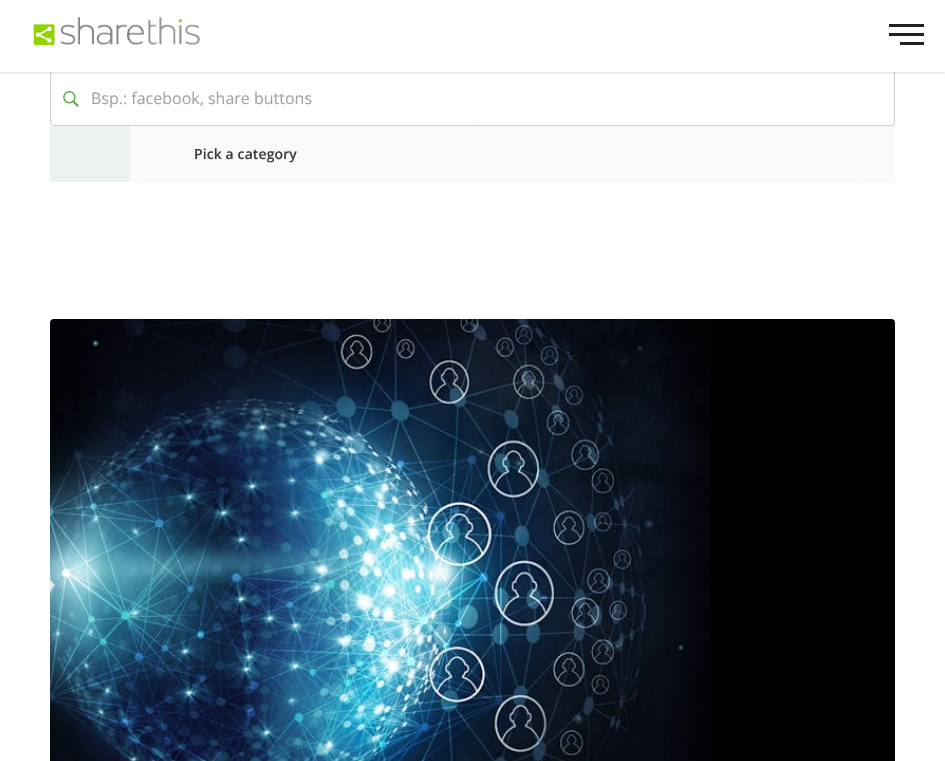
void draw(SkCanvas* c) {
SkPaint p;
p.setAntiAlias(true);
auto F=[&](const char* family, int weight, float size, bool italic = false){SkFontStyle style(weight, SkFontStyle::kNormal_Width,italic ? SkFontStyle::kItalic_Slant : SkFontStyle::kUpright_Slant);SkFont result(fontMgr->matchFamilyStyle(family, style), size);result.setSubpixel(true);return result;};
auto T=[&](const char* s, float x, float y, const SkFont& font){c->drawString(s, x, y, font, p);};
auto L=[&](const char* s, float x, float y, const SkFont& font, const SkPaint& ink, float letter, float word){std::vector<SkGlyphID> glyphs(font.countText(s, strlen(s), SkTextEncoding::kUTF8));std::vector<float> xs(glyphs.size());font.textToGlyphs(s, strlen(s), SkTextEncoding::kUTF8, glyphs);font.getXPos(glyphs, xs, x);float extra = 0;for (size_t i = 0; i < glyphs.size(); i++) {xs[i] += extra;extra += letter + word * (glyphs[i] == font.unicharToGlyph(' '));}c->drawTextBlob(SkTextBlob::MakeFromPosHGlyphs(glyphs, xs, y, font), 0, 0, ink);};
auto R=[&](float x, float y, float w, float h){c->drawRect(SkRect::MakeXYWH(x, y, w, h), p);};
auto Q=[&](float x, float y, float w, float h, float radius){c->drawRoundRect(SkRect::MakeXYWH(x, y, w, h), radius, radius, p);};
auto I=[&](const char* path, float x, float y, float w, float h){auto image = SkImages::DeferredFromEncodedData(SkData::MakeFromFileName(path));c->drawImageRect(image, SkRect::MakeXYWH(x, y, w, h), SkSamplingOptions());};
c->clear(0xffffffff);
p.setStroke(true);
p.setStrokeWidth(1);
p.setColor(0xffcccccc);
c->drawRoundRect(SkRect::MakeXYWH(50.5,70.5,844,55),3.5,3.5,p);
p.setStroke(false);
p.setColor(0x38000000);
p.setMaskFilter(SkMaskFilter::MakeBlur(kNormal_SkBlurStyle, 1.5));
c->drawRect(SkRect::MakeXYWH(0,0,945,72),p);
p.setMaskFilter(nullptr);
p.setColor(0xffffffff);
R(0,0,945,72);
I("1.png",33,17,167,28);
p.setColor(0xff222222);
R(889,24,35,3);
R(889,33,35,3);
R(900,42,24,3);
I("2.png",63,91,16,16);
auto f1 = F("Open Sans",400,16);
p.setColor(0xffa3a3a3);
T("Bsp.: facebook, share buttons",91,104,f1);
p.setColor(0xffecf3ee);
R(50,126,80,56);
p.setColor(0xfffafafa);
Q(130,126,765,56,4);
p.setColor(0xfff5f5f5);
R(132,181,761,1);
p.setColor(0xfffafafa);
Q(138,126,725,56,4);
p.setColor(0xfff5f5f5);
R(140,181,721,1);
auto f2 = F("Open Sans",600,14);
p.setColor(0xff3d3d3d);
L("Pick a category",194,159,f2,p,.1,0);
I("3.png",50,319,845,442);
}
